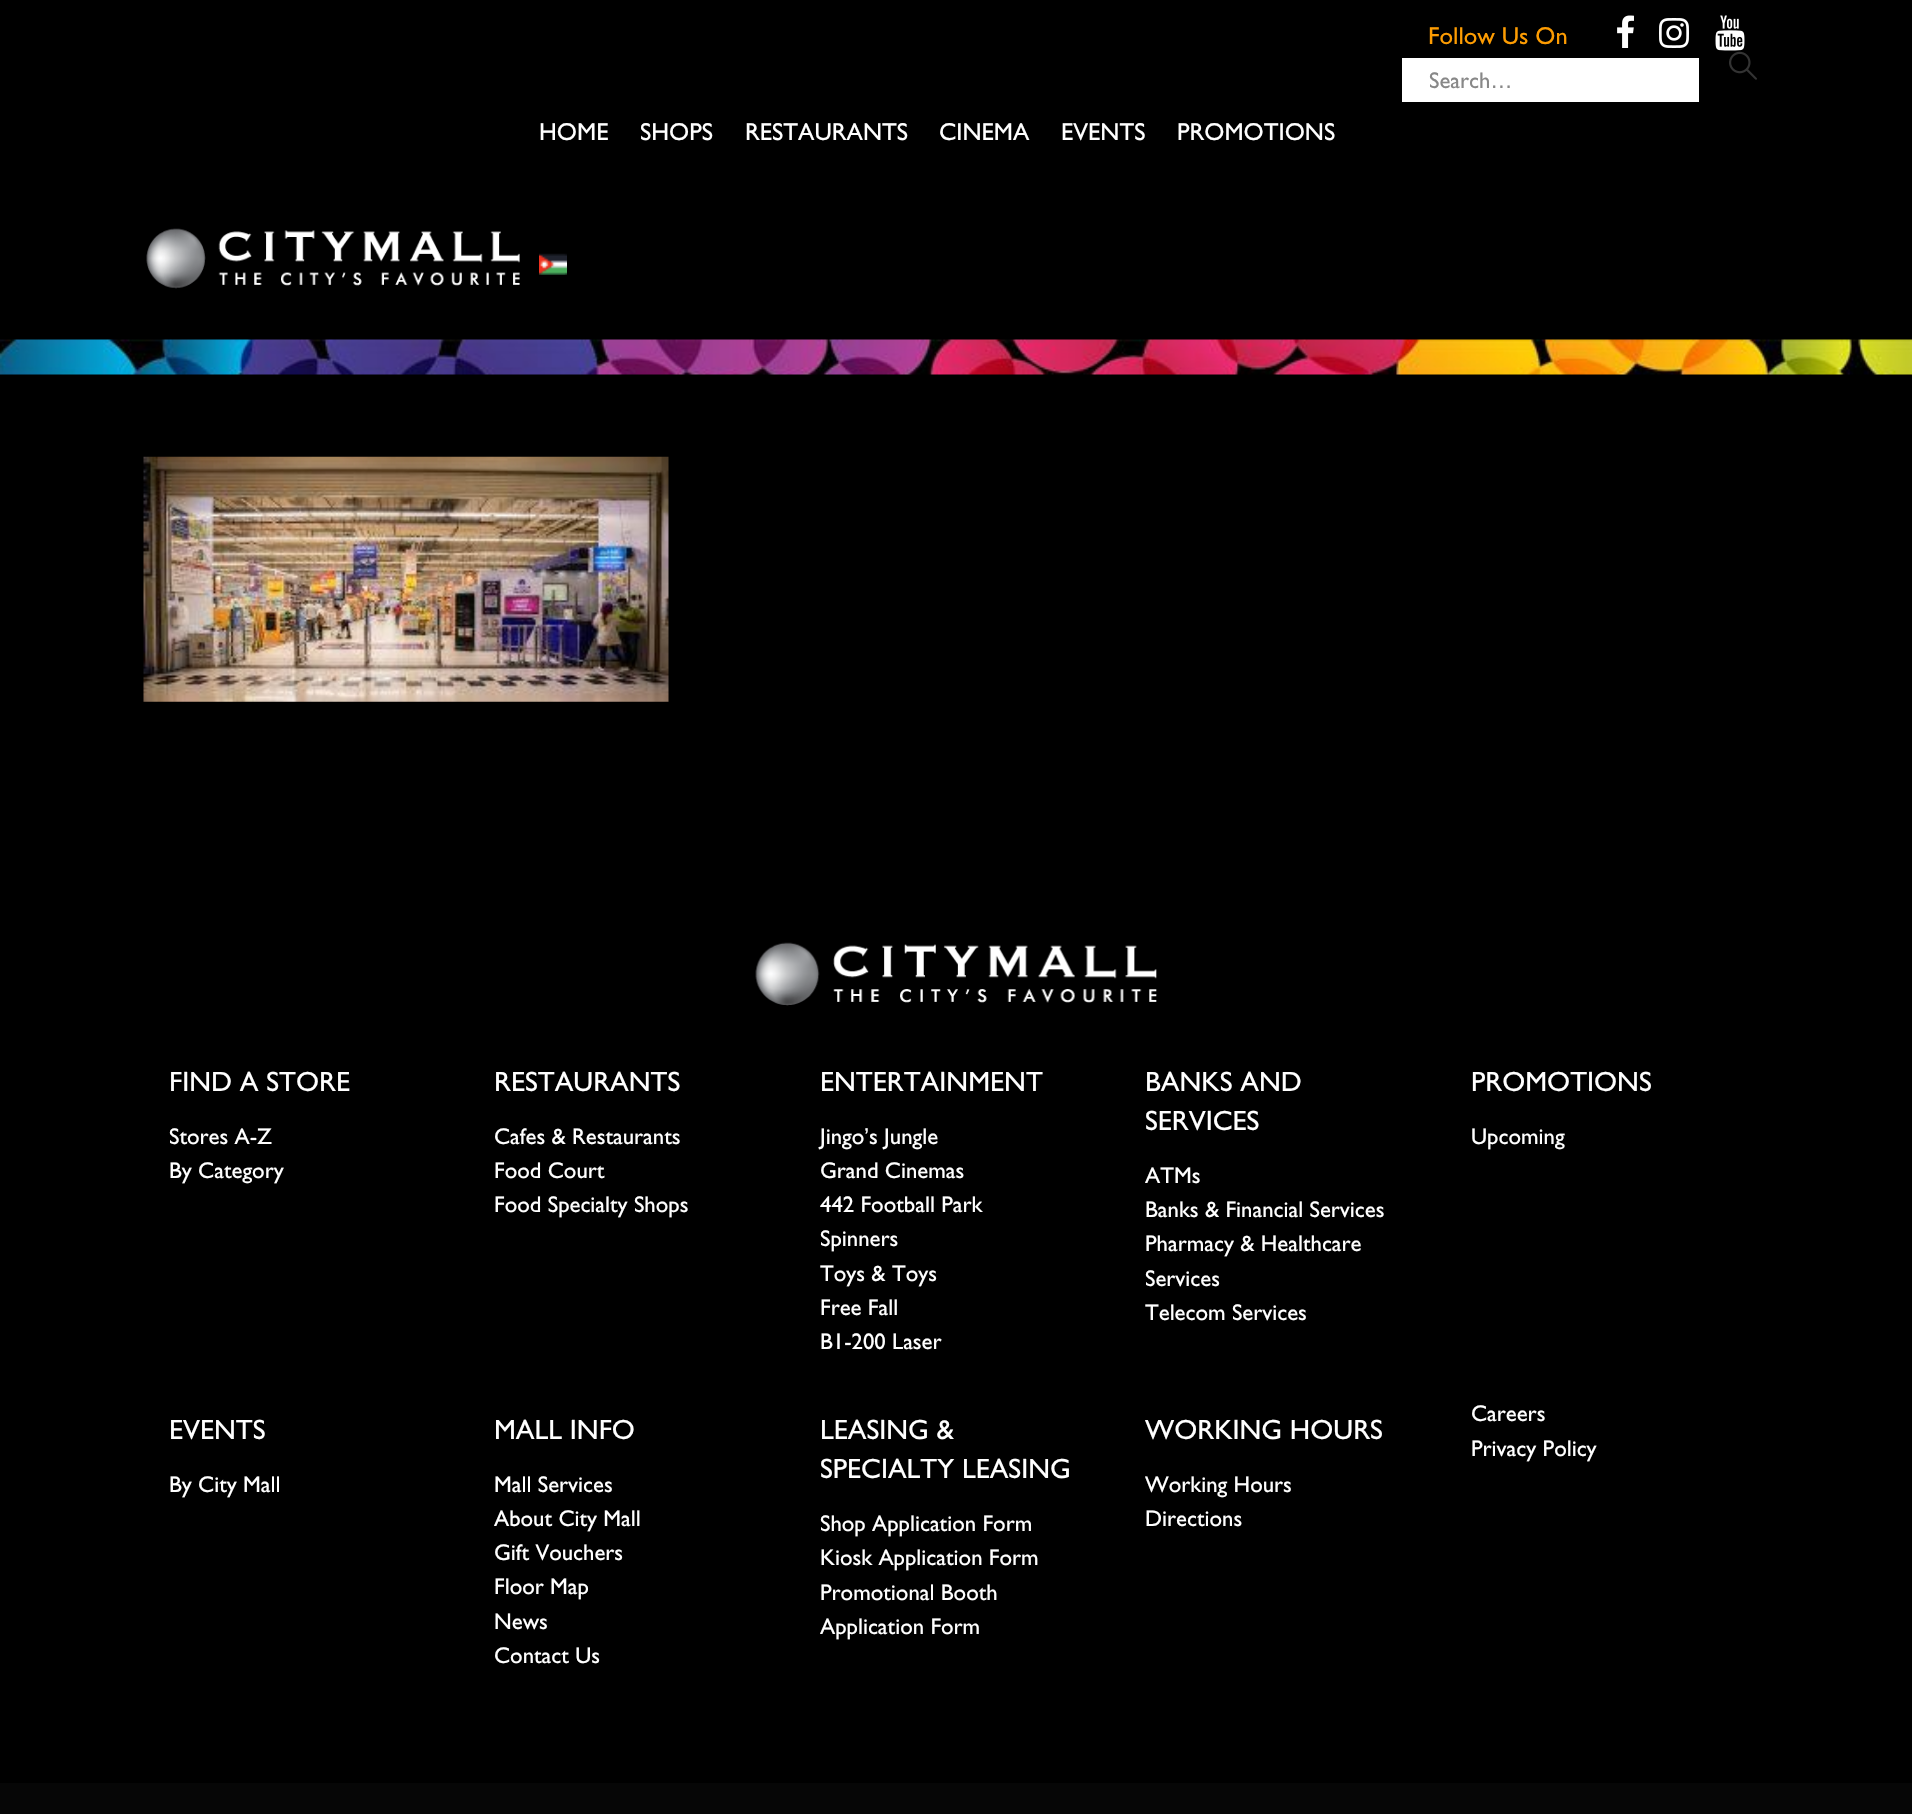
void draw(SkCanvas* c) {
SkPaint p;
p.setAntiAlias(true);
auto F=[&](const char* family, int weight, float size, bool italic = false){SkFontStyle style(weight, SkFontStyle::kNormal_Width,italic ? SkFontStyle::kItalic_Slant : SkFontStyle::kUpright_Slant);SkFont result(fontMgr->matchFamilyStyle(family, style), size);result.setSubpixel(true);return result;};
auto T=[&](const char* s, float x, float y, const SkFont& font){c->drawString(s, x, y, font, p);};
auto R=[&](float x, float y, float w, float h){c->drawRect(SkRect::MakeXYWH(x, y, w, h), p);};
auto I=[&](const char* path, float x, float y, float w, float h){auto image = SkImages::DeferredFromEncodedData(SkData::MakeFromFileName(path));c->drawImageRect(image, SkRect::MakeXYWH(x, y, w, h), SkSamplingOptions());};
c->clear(0xff000000);
auto f1 = F("Gill Sans",400,24.5);
p.setColor(0xfffd9c02);
T("Follow Us On",1428,44,f1);
I("1.png",1617,15,17,33);
I("2.png",1659,18,30,30);
I("3.png",1715,15,30,36);
p.setColor(0xffffffff);
R(1402,58,297,44);
auto f2 = F("Gill Sans",400,22.75);
p.setColor(0xff888888);
T("Search",1429,88,f2);
auto f3 = F("Liberation Sans",400,22.75);
T("…",1490,88,f3);
I("4.png",1729,51,28,29);
p.setColor(0xffffffff);
T("HOME",539,140,f1);
T("SHOPS",640,140,f1);
T("RESTAURANTS",745,140,f1);
T("CINEMA",939,140,f1);
T("EVENTS",1061,140,f1);
T("PROMOTIONS",1177,140,f1);
I("5.png",539,253,28,22);
I("6.png",146,228,374,61);
I("7.png",0,339,1912,36);
I("8.png",143,456,526,246);
I("9.png",755,942,402,64);
auto f4 = F("Gill Sans",400,28);
T("FIND A STORE",169,1091,f4);
T("Stores A-Z",169,1144,f2);
T("By Category",169,1178,f2);
T("RESTAURANTS",494,1091,f4);
T("Cafes & Restaurants",494,1144,f2);
T("Food Court",494,1178,f2);
T("Food Specialty Shops",494,1212,f2);
T("ENTERTAINMENT",820,1091,f4);
T("Jingo",820,1144,f2);
T("’",864,1144,f3);
T("s Jungle",869,1144,f2);
T("Grand Cinemas",820,1178,f2);
T("442 Football Park",820,1212,f2);
T("Spinners",820,1246,f2);
T("Toys & Toys",820,1281,f2);
T("Free Fall",820,1315,f2);
T("B1-200 Laser",820,1349,f2);
T("BANKS AND",1145,1091,f4);
T("SERVICES",1145,1130,f4);
T("ATMs",1145,1183,f2);
T("Banks & Financial Services",1145,1217,f2);
T("Pharmacy & Healthcare",1145,1251,f2);
T("Services",1145,1286,f2);
T("Telecom Services",1145,1320,f2);
T("PROMOTIONS",1471,1091,f4);
T("Upcoming",1471,1144,f2);
T("EVENTS",169,1439,f4);
T("By City Mall",169,1492,f2);
T("MALL INFO",494,1439,f4);
T("Mall Services",494,1492,f2);
T("About City Mall",494,1526,f2);
T("Gift Vouchers",494,1560,f2);
T("Floor Map",494,1594,f2);
T("News",494,1629,f2);
T("Contact Us",494,1663,f2);
T("LEASING &",820,1439,f4);
T("SPECIALTY LEASING",820,1478,f4);
T("Shop Application Form",820,1531,f2);
T("Kiosk Application Form",820,1565,f2);
T("Promotional Booth",820,1600,f2);
T("Application Form",820,1634,f2);
T("WORKING HOURS",1145,1439,f4);
T("Working Hours",1145,1492,f2);
T("Directions",1145,1526,f2);
T("Careers",1471,1421,f2);
T("Privacy Policy",1471,1456,f2);
p.setColor(0xff060606);
R(0,1783,1912,31);
}
